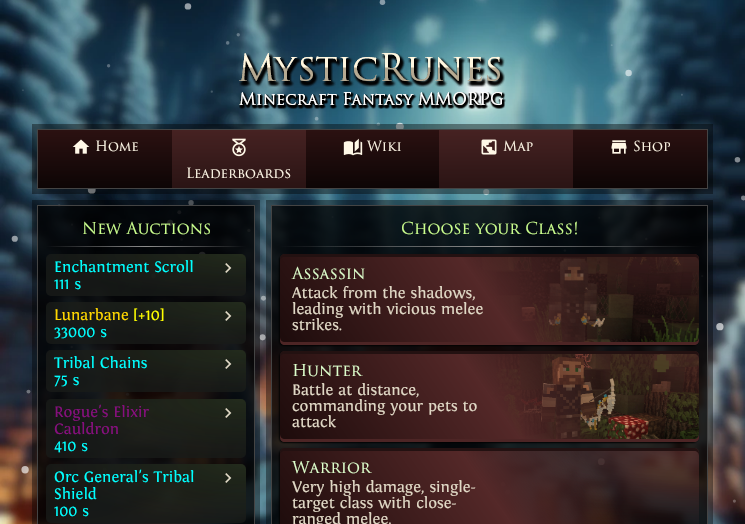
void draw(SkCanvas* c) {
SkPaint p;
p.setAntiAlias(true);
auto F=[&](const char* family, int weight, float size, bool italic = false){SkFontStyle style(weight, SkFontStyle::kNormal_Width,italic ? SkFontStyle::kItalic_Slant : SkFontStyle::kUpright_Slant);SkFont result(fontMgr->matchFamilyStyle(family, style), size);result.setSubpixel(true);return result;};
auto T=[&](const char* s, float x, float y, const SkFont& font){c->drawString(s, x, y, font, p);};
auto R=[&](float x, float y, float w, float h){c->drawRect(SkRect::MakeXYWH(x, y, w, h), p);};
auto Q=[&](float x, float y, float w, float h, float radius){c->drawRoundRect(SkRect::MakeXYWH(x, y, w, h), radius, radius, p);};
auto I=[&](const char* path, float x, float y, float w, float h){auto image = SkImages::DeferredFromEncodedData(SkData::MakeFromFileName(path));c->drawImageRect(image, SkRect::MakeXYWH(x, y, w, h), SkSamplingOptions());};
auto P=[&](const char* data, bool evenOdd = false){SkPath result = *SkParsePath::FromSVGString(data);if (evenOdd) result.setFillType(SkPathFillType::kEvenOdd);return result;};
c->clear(0xffffffff);
I("1.png",0,0,745,524);
I("2.png",11,0,734,503);
I("3.png",239,53,267,56);
I("4.png",239,53,267,56);
p.setStroke(true);
p.setStrokeWidth(5);
p.setColor(0x66000000);
c->drawRect(SkRect::MakeXYWH(34.5,126.5,676,65),p);
p.setStrokeWidth(1);
p.setColor(0xff444444);
c->drawRect(SkRect::MakeXYWH(37.5,129.5,670,59),p);
p.setStroke(false);
{
const SkColor colors[] = {0xff0d0505,0xff2b1111};
const float stops[] = {0,1};
const SkPoint ends[] = {{105,188}, {105,130}};
p.setShader(SkGradientShader::MakeLinear(ends, colors, stops, 2, SkTileMode::kClamp));
p.setAlpha(255);
}
R(38,130,134,58);
I("5.png",72,139,18,15);
auto f1 = F("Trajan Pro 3",400,13.5);
p.setShader(nullptr);
p.setColor(0xfffff8e7);
T("Home",95,151,f1);
{
const SkColor colors[] = {0xff0d0505,0xff2b1111};
const float stops[] = {0,1};
const SkPoint ends[] = {{373,188}, {373,130}};
p.setShader(SkGradientShader::MakeLinear(ends, colors, stops, 2, SkTileMode::kClamp));
p.setAlpha(255);
}
R(306,130,133,58);
I("6.png",343,138,20,18);
p.setShader(nullptr);
p.setColor(0xfffff8e7);
T("Wiki",367,151,f1);
{
const SkColor colors[] = {0xff2a1414,0xff462222};
const float stops[] = {0,1};
const SkPoint ends[] = {{506,188}, {506,130}};
p.setShader(SkGradientShader::MakeLinear(ends, colors, stops, 2, SkTileMode::kClamp));
p.setAlpha(255);
}
R(439,130,134,58);
I("7.png",481,139,16,16);
p.setShader(nullptr);
p.setColor(0xfffff8e7);
T("Map",503,151,f1);
{
const SkColor colors[] = {0xff0d0505,0xff2b1111};
const float stops[] = {0,1};
const SkPoint ends[] = {{640,188}, {640,130}};
p.setShader(SkGradientShader::MakeLinear(ends, colors, stops, 2, SkTileMode::kClamp));
p.setAlpha(255);
}
R(573,130,134,58);
I("8.png",611,140,16,14);
p.setShader(nullptr);
p.setColor(0xfffff8e7);
T("Shop",633,151,f1);
{
const SkColor colors[] = {0xff2a1414,0xff462222};
const float stops[] = {0,1};
const SkPoint ends[] = {{239,188}, {239,130}};
p.setShader(SkGradientShader::MakeLinear(ends, colors, stops, 2, SkTileMode::kClamp));
p.setAlpha(255);
}
R(172,130,134,58);
I("9.png",232,138,14,19);
p.setShader(nullptr);
p.setColor(0xfffff8e7);
T("Leaderboards",186,178,f1);
p.setStroke(true);
p.setStrokeWidth(5);
p.setColor(0x66000000);
c->drawRect(SkRect::MakeXYWH(34.5,202.5,223,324),p);
p.setStroke(false);
p.setColor(0xcc000000);
c->drawRect(SkRect::MakeXYWH(37.5,205.5,217,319),p);
p.setStroke(true);
p.setStrokeWidth(1);
p.setColor(0xff444444);
c->drawRect(SkRect::MakeXYWH(37.5,205.5,217,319),p);
auto f2 = F("Trajan Pro 3",400,16);
p.setStroke(false);
p.setColor(0xffcbff8e);
T("New Auctions",82,234,f2);
{
const SkColor colors[] = {0x008d8d8d,0xff8d8d8d,0x008d8d8d};
const float stops[] = {0,.5,1};
const SkPoint ends[] = {{46,247}, {246,247}};
p.setShader(SkGradientShader::MakeLinear(ends, colors, stops, 3, SkTileMode::kClamp));
p.setAlpha(255);
}
R(46,246,200,1);
{
const SkColor colors[] = {0xff222a1b,0xcc181a18};
const float stops[] = {0,1};
SkMatrix m = SkMatrix::Translate(246,254).preScale(200,42);
p.setShader(SkGradientShader::MakeRadial({0, 0}, 1, colors, stops, 2, SkTileMode::kClamp, 0, &m));
p.setAlpha(255);
}
Q(46,254,200,42,5);
auto f3 = F("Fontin",400,16);
p.setShader(nullptr);
p.setColor(0xff00ffff);
T("Enchantment Scroll",54,272,f3);
I("10.png",225,263,7,10);
T("111 s",54,289,f3);
{
const SkColor colors[] = {0xff222a1b,0xcc181a18};
const float stops[] = {0,1};
SkMatrix m = SkMatrix::Translate(246,302).preScale(200,42);
p.setShader(SkGradientShader::MakeRadial({0, 0}, 1, colors, stops, 2, SkTileMode::kClamp, 0, &m));
p.setAlpha(255);
}
Q(46,302,200,42,5);
p.setShader(nullptr);
p.setColor(0xffffd700);
T("Lunarbane",54,320,f3);
p.setColor(0xffffff00);
T("[+10]",134,320,f3);
I("11.png",225,311,7,10);
p.setColor(0xff00ffff);
T("33000 s",54,337,f3);
{
const SkColor colors[] = {0xff222a1b,0xcc181a18};
const float stops[] = {0,1};
SkMatrix m = SkMatrix::Translate(246,350).preScale(200,42);
p.setShader(SkGradientShader::MakeRadial({0, 0}, 1, colors, stops, 2, SkTileMode::kClamp, 0, &m));
p.setAlpha(255);
}
Q(46,350,200,42,5);
p.setShader(nullptr);
p.setColor(0xff00ffff);
T("Tribal Chains",54,368,f3);
I("12.png",225,359,7,10);
T("75 s",54,385,f3);
{
const SkColor colors[] = {0xff222a1b,0xcc181a18};
const float stops[] = {0,1};
SkMatrix m = SkMatrix::Translate(246,399).preScale(200,59);
p.setShader(SkGradientShader::MakeRadial({0, 0}, 1, colors, stops, 2, SkTileMode::kClamp, 0, &m));
p.setAlpha(255);
}
Q(46,399,200,59,5);
p.setShader(nullptr);
p.setColor(0xff860f7d);
T("Rogue's Elixir",54,417,f3);
I("13.png",225,408,7,10);
T("Cauldron",54,434,f3);
p.setColor(0xff00ffff);
T("410 s",54,451,f3);
{
const SkColor colors[] = {0xff222a1b,0xcc181a18};
const float stops[] = {0,1};
SkMatrix m = SkMatrix::Translate(246,464).preScale(200,59);
p.setShader(SkGradientShader::MakeRadial({0, 0}, 1, colors, stops, 2, SkTileMode::kClamp, 0, &m));
p.setAlpha(255);
}
Q(46,464,200,59,5);
p.setShader(nullptr);
p.setColor(0xff00ffff);
T("Orc General's Tribal",54,482,f3);
I("14.png",225,473,7,10);
T("Shield",54,499,f3);
T("100 s",54,516,f3);
p.setStroke(true);
p.setStrokeWidth(5);
p.setColor(0x66000000);
c->drawRect(SkRect::MakeXYWH(268.5,202.5,442,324),p);
p.setStroke(false);
p.setColor(0xcc000000);
c->drawRect(SkRect::MakeXYWH(271.5,205.5,436,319),p);
p.setStroke(true);
p.setStrokeWidth(1);
p.setColor(0xff444444);
c->drawRect(SkRect::MakeXYWH(271.5,205.5,436,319),p);
p.setStroke(false);
p.setColor(0xffcbff8e);
T("Choose your Class!",401,234,f2);
{
const SkColor colors[] = {0x008d8d8d,0xff8d8d8d,0x008d8d8d};
const float stops[] = {0,.5,1};
const SkPoint ends[] = {{280,247}, {699,247}};
p.setShader(SkGradientShader::MakeLinear(ends, colors, stops, 3, SkTileMode::kClamp));
p.setAlpha(255);
}
R(280,246,419,1);
I("15.png",461,257,238,85);
c->save();
c->clipPath(P("M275 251h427v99h-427zm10 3h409c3 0 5 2 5 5v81c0 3-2 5-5 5h-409c-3 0-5-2-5-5v-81c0-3 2-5 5-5z",true),true);
p.setShader(nullptr);
p.setColor(0xff000000);
p.setMaskFilter(SkMaskFilter::MakeBlur(kNormal_SkBlurStyle, 1));
c->drawRoundRect(SkRect::MakeXYWH(279,255,419,91),5,5,p);
p.setMaskFilter(nullptr);
c->restore();
{
const SkColor colors[] = {0x668e4444,0x008e4444};
const float stops[] = {0,1};
SkMatrix m = SkMatrix::Translate(699,254).preScale(419,91);
p.setShader(SkGradientShader::MakeRadial({0, 0}, 1, colors, stops, 2, SkTileMode::kClamp, 0, &m));
p.setAlpha(255);
}
Q(280,254,419,91,5);
{
const SkColor colors[] = {0xff1c0b0b,0xff542828,0x00542828};
const float stops[] = {0,.5,.75};
const SkPoint ends[] = {{328,413}, {651,186}};
p.setShader(SkGradientShader::MakeLinear(ends, colors, stops, 3, SkTileMode::kClamp));
p.setAlpha(255);
}
Q(280,254,419,91,5);
p.setShader(nullptr);
p.setColor(0xff231111);
c->drawPath(P("M285 257h409c3 0 5 2 5 5v-3c0-3-2-5-5-5h-409c-3 0-5 2-5 5v3c0-3 2-5 5-5z"),p);
p.setColor(0xff4d2525);
c->drawPath(P("M280 337v3c0 3 2 5 5 5h409c3 0 5-2 5-5v-3c0 3-2 5-5 5h-409c-3 0-5-2-5-5z"),p);
p.setColor(0xffddffcc);
T("Assassin",292,279,f2);
p.setColor(0xffe0d8c5);
T("Attack from the shadows,",292,298,f3);
T("leading with vicious melee",292,314,f3);
T("strikes.",292,330,f3);
I("16.png",461,354,238,85);
c->save();
c->clipPath(P("M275 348h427v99h-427zm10 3h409c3 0 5 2 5 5v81c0 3-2 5-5 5h-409c-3 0-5-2-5-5v-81c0-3 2-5 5-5z",true),true);
p.setColor(0xff000000);
p.setMaskFilter(SkMaskFilter::MakeBlur(kNormal_SkBlurStyle, 1));
c->drawRoundRect(SkRect::MakeXYWH(279,352,419,91),5,5,p);
p.setMaskFilter(nullptr);
c->restore();
{
const SkColor colors[] = {0x668e4444,0x008e4444};
const float stops[] = {0,1};
SkMatrix m = SkMatrix::Translate(699,351).preScale(419,91);
p.setShader(SkGradientShader::MakeRadial({0, 0}, 1, colors, stops, 2, SkTileMode::kClamp, 0, &m));
p.setAlpha(255);
}
Q(280,351,419,91,5);
{
const SkColor colors[] = {0xff1c0b0b,0xff542828,0x00542828};
const float stops[] = {0,.5,.75};
const SkPoint ends[] = {{328,510}, {651,283}};
p.setShader(SkGradientShader::MakeLinear(ends, colors, stops, 3, SkTileMode::kClamp));
p.setAlpha(255);
}
Q(280,351,419,91,5);
p.setShader(nullptr);
p.setColor(0xff231111);
c->drawPath(P("M285 354h409c3 0 5 2 5 5v-3c0-3-2-5-5-5h-409c-3 0-5 2-5 5v3c0-3 2-5 5-5z"),p);
p.setColor(0xff4d2525);
c->drawPath(P("M280 434v3c0 3 2 5 5 5h409c3 0 5-2 5-5v-3c0 3-2 5-5 5h-409c-3 0-5-2-5-5z"),p);
p.setColor(0xffddffcc);
T("Hunter",292,376,f2);
p.setColor(0xffe0d8c5);
T("Battle at distance,",292,395,f3);
T("commanding your pets to",292,411,f3);
T("attack",292,427,f3);
c->save();
c->clipPath(P("M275 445h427v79h-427zm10 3h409c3 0 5 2 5 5v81c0 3-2 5-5 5h-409c-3 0-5-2-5-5v-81c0-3 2-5 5-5z",true),true);
p.setColor(0xff000000);
p.setMaskFilter(SkMaskFilter::MakeBlur(kNormal_SkBlurStyle, 1));
c->drawRoundRect(SkRect::MakeXYWH(279,449,419,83),5,5,p);
p.setMaskFilter(nullptr);
c->restore();
{
const SkColor colors[] = {0x668e4444,0x008e4444};
const float stops[] = {0,1};
SkMatrix m = SkMatrix::Translate(699,448).preScale(419,91);
p.setShader(SkGradientShader::MakeRadial({0, 0}, 1, colors, stops, 2, SkTileMode::kClamp, 0, &m));
p.setAlpha(255);
}
Q(280,448,419,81,5);
{
const SkColor colors[] = {0xff1c0b0b,0xff542828,0x00542828};
const float stops[] = {0,.5,.75};
const SkPoint ends[] = {{328,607}, {651,380}};
p.setShader(SkGradientShader::MakeLinear(ends, colors, stops, 3, SkTileMode::kClamp));
p.setAlpha(255);
}
Q(280,448,419,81,5);
p.setShader(nullptr);
p.setColor(0xff231111);
c->drawPath(P("M285 451h409c3 0 5 2 5 5v-3c0-3-2-5-5-5h-409c-3 0-5 2-5 5v3c0-3 2-5 5-5z"),p);
p.setColor(0xffddffcc);
T("Warrior",292,473,f2);
p.setColor(0xffe0d8c5);
T("Very high damage, single-",292,492,f3);
T("target class with close-",292,508,f3);
T("ranged melee.",292,524,f3);
}
